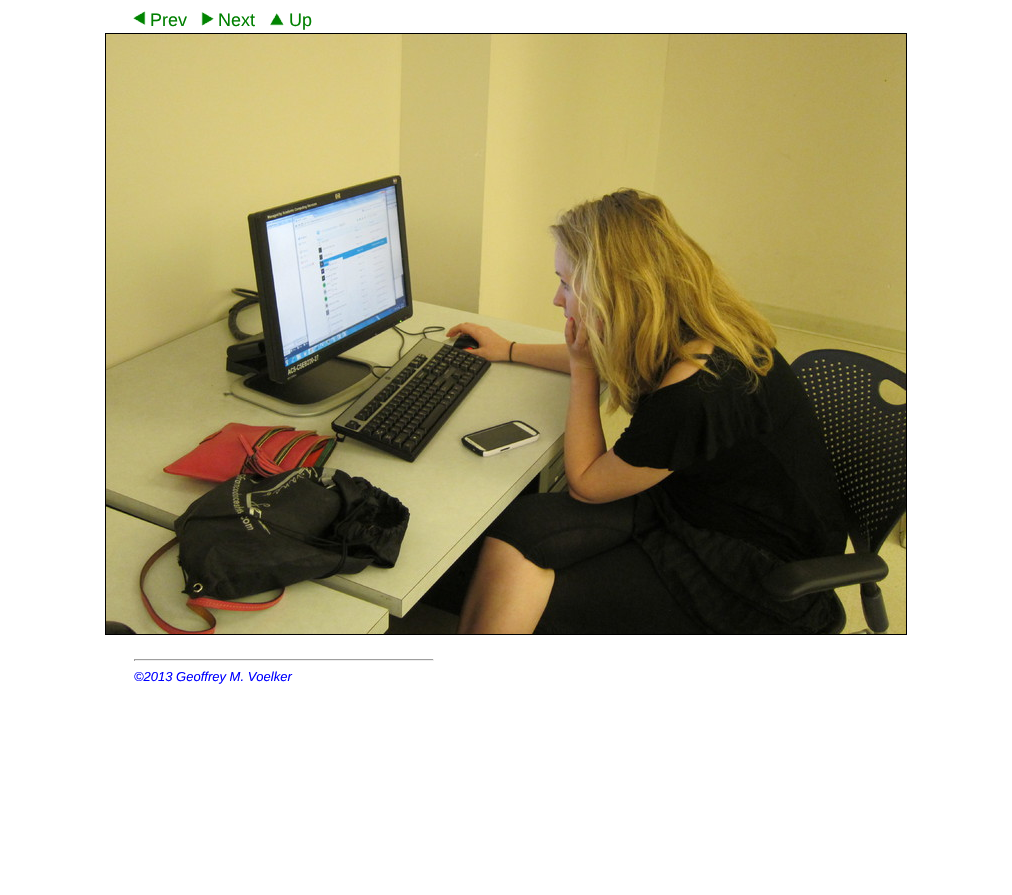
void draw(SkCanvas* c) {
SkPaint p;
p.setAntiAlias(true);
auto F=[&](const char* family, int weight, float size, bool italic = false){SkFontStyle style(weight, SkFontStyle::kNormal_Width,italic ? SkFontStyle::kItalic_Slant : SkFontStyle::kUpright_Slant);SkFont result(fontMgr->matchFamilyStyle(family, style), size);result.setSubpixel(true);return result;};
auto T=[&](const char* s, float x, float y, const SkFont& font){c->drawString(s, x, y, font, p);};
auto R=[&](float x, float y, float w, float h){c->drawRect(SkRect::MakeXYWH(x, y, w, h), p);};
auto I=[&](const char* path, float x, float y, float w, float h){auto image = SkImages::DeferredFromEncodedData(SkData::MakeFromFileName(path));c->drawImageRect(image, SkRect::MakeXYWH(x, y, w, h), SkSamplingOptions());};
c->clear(0xffffffff);
I("1.png",133,11,13,14);
auto f1 = F("Liberation Sans",400,18);
p.setColor(0xff008000);
T("Prev",150,26,f1);
I("2.png",201,12,13,14);
T("Next",218,26,f1);
I("3.png",270,13,14,13);
T("Up",289,26,f1);
p.setStroke(true);
p.setStrokeWidth(1);
p.setColor(0xff000000);
c->drawRect(SkRect::MakeXYWH(105.5,33.5,801,601),p);
I("4.png",106,34,800,600);
p.setStroke(false);
p.setColor(0xff9f9f9f);
R(134,659,300,1);
p.setColor(0xffeeeeee);
R(433,659,1,2);
R(134,660,300,1);
p.setColor(0xff9f9f9f);
R(134,659,1,2);
auto f2 = F("Liberation Sans",400,13,true);
p.setColor(0xff0000ff);
T("©2013 Geoffrey M. Voelker",134,681,f2);
}
